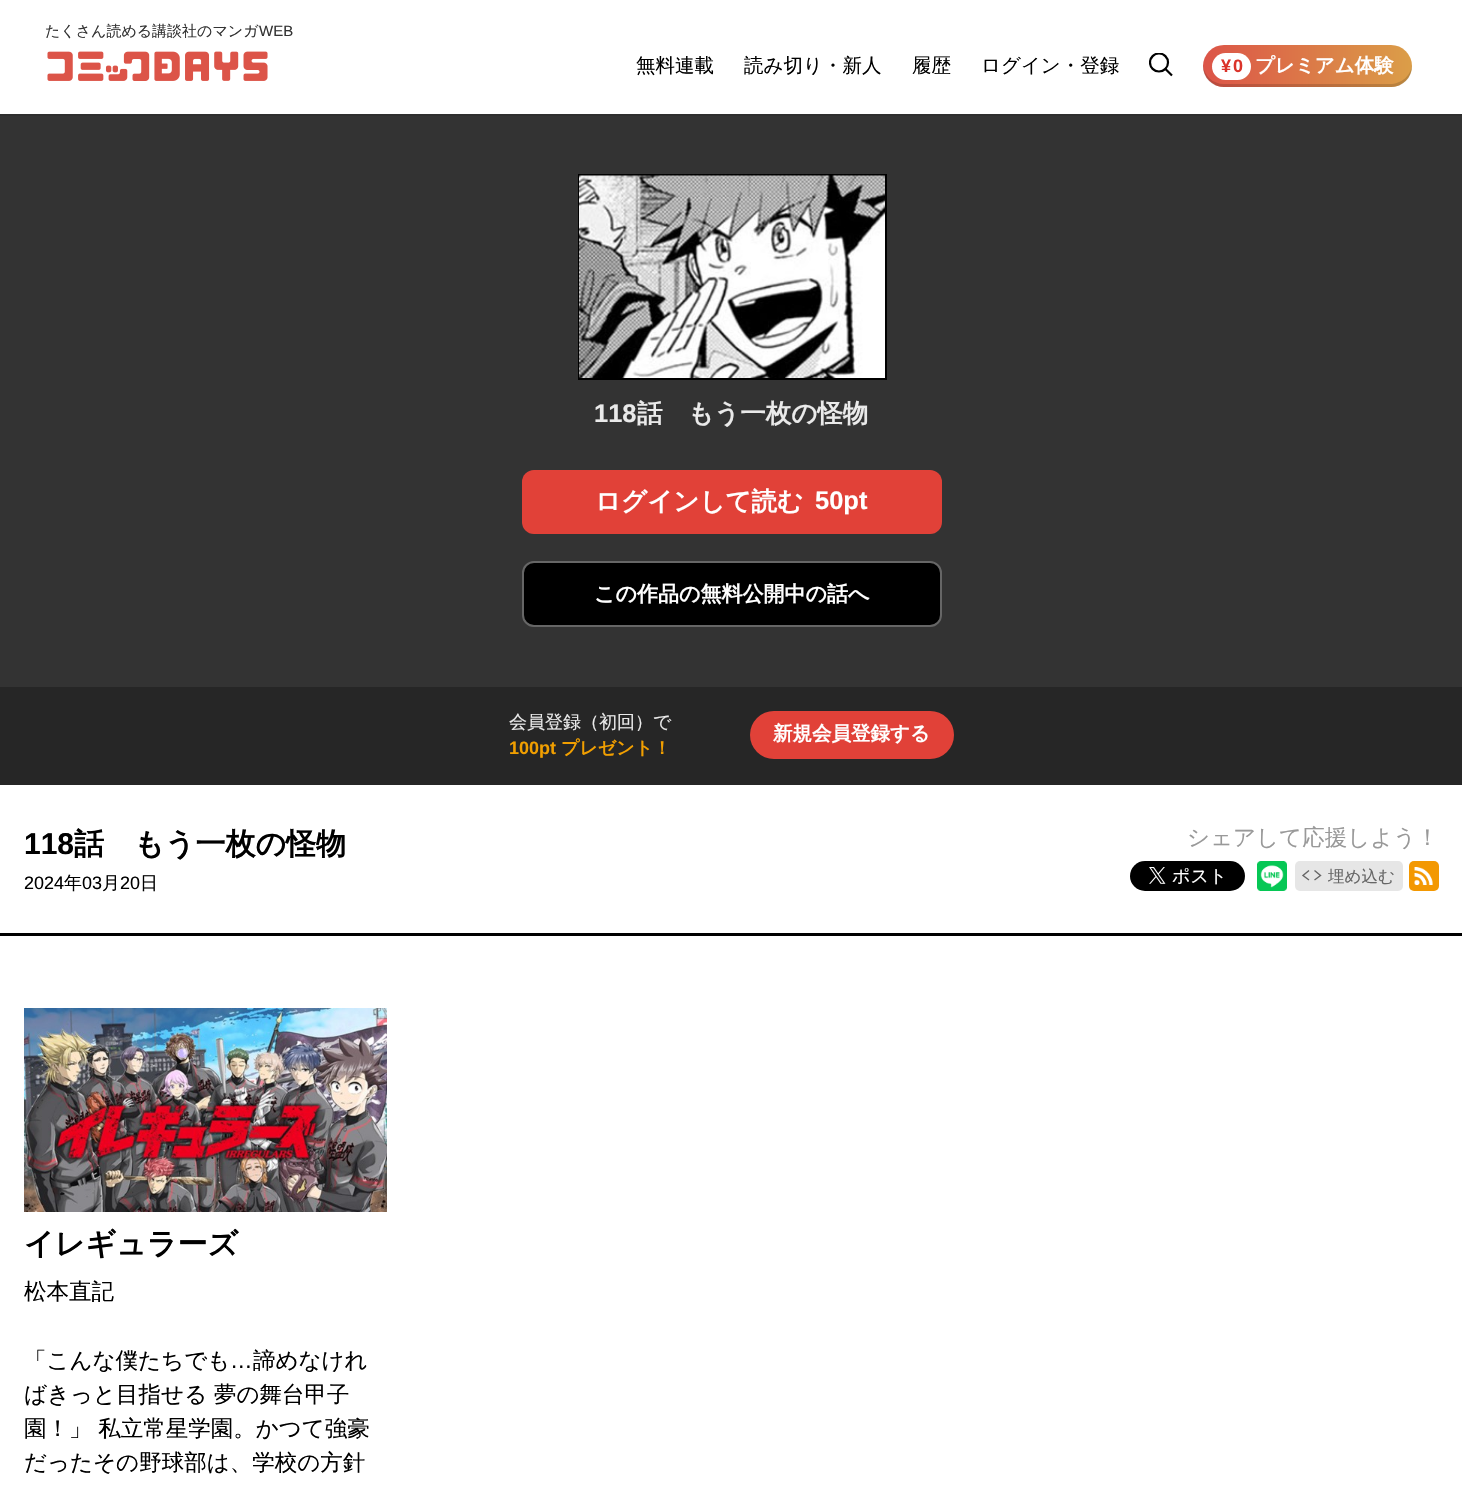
void draw(SkCanvas* c) {
SkPaint p;
p.setAntiAlias(true);
auto F=[&](const char* family, int weight, float size, bool italic = false){SkFontStyle style(weight, SkFontStyle::kNormal_Width,italic ? SkFontStyle::kItalic_Slant : SkFontStyle::kUpright_Slant);SkFont result(fontMgr->matchFamilyStyle(family, style), size);result.setSubpixel(true);return result;};
auto T=[&](const char* s, float x, float y, const SkFont& font){c->drawString(s, x, y, font, p);};
auto L=[&](const char* s, float x, float y, const SkFont& font, const SkPaint& ink, float letter, float word){std::vector<SkGlyphID> glyphs(font.countText(s, strlen(s), SkTextEncoding::kUTF8));std::vector<float> xs(glyphs.size());font.textToGlyphs(s, strlen(s), SkTextEncoding::kUTF8, glyphs);font.getXPos(glyphs, xs, x);float extra = 0;for (size_t i = 0; i < glyphs.size(); i++) {xs[i] += extra;extra += letter + word * (glyphs[i] == font.unicharToGlyph(' '));}c->drawTextBlob(SkTextBlob::MakeFromPosHGlyphs(glyphs, xs, y, font), 0, 0, ink);};
auto R=[&](float x, float y, float w, float h){c->drawRect(SkRect::MakeXYWH(x, y, w, h), p);};
auto Q=[&](float x, float y, float w, float h, float radius){c->drawRoundRect(SkRect::MakeXYWH(x, y, w, h), radius, radius, p);};
auto I=[&](const char* path, float x, float y, float w, float h){auto image = SkImages::DeferredFromEncodedData(SkData::MakeFromFileName(path));c->drawImageRect(image, SkRect::MakeXYWH(x, y, w, h), SkSamplingOptions());};
auto P=[&](const char* data, bool evenOdd = false){SkPath result = *SkParsePath::FromSVGString(data);if (evenOdd) result.setFillType(SkPathFillType::kEvenOdd);return result;};
c->clear(0xffffffff);
p.setColor(0xff2e2e2e);
c->drawPath(P("M0 114v2h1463v-114h-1v112z"),p);
auto f1 = F("WenQuanYi Zen Hei",500,15);
p.setColor(0xff333333);
T("たくさん読める講談社のマンガ",45,36,f1);
auto f2 = F("Liberation Sans",400,15);
T("WEB",259,36,f2);
I("1.png",47,51,221,30);
auto f3 = F("WenQuanYi Zen Hei",500,19.5);
p.setColor(0xff000000);
T("無料連載",636,72,f3);
T("読み切り・新人",744,72,f3);
T("履歴",912,72,f3);
T("ログイン・登録",981,72,f3);
c->save();
c->clipRect(SkRect::MakeXYWH(1149,53,24,24));
p.setStroke(true);
p.setStrokeWidth(2.2);
c->drawCircle(1159,62.5,9,p);
c->restore();
c->drawPath(P("M1165 68.5l7 7"),p);
p.setStroke(false);
{
const SkColor colors[] = {0xffdc5448,0xffdb9e48};
const float stops[] = {0,1};
const SkPoint ends[] = {{1203,66}, {1412,66}};
p.setShader(SkGradientShader::MakeLinear(ends, colors, stops, 2, SkTileMode::kClamp));
p.setAlpha(255);
}
Q(1203,45,209,42,21);
p.setShader(nullptr);
p.setColor(0x26000000);
c->drawPath(P("M1203 65v1c0 12 9 21 21 21h167c12 0 21-9 21-21v-1c-1 11-11 19-22 19h-166c-11 0-20-8-21-19z"),p);
p.setColor(0xffffffff);
Q(1212,53,39,27,13.5);
auto f4 = F("Liberation Sans",700,18);
p.setColor(0xffdb332a);
L("¥0",1221,72,f4,p,2,0);
auto f5 = F("WenQuanYi Zen Hei",700,19.5);
p.setColor(0xffffffff);
T("プレミアム体験",1255,72,f5);
p.setColor(0xff333333);
R(0,116,1462,571);
p.setStroke(true);
p.setStrokeWidth(2);
p.setColor(0xff000000);
c->drawRect(SkRect::MakeXYWH(579,175,307,204),p);
I("2.png",579,175,306,203);
auto f6 = F("Liberation Sans",700,25.5);
p.setStroke(false);
p.setColor(0xffeaeaea);
T("118",594,422,f6);
auto f7 = F("WenQuanYi Zen Hei",700,25.5);
T("話　もう一枚の怪物",637,422,f7);
p.setColor(0xffe14138);
Q(522,470,420,64,12);
p.setColor(0xffffffff);
T("ログインして読む",595,510,f7);
T("50pt",815,509,f6);
p.setColor(0xff000000);
c->drawRoundRect(SkRect::MakeXYWH(523,562,418,64),11,11,p);
p.setStroke(true);
p.setColor(0xff666666);
c->drawRoundRect(SkRect::MakeXYWH(523,562,418,64),11,11,p);
auto f8 = F("WenQuanYi Zen Hei",700,21);
p.setStroke(false);
p.setColor(0xffffffff);
T("この作品の無料公開中の話へ",594,601,f8);
p.setColor(0xff262626);
R(0,687,1462,98);
auto f9 = F("WenQuanYi Zen Hei",500,18);
p.setColor(0xffeaeaea);
T("会員登録（初回）で",509,728,f9);
p.setColor(0xfff19f00);
T("100pt",509,754,f4);
auto f10 = F("WenQuanYi Zen Hei",700,18);
T("プレゼント！",561,754,f10);
p.setColor(0xffe14138);
Q(750,711,204,48,24);
p.setColor(0xffffffff);
T("新規会員登録する",773,740,f5);
p.setColor(0xff000000);
R(0,933,1462,3);
auto f11 = F("Liberation Sans",700,30);
T("118",24,854,f11);
auto f12 = F("WenQuanYi Zen Hei",700,30);
T("話　もう一枚の怪物",74,854,f12);
auto f13 = F("Liberation Sans",400,18);
T("2024",24,889,f13);
T("年",64,889,f9);
T("03",82,889,f13);
T("月",102,889,f9);
T("20",120,889,f13);
T("日",140,889,f9);
auto f14 = F("WenQuanYi Zen Hei",500,22.5);
p.setColor(0xff999999);
T("シェアして応援しよう！",1187,845,f14);
p.setColor(0xff000000);
Q(1130,861,115,30,15);
I("3.png",1149,867,17,17);
p.setColor(0xffffffff);
T("ポスト",1172,882,f9);
I("4.png",1257,861,30,30);
p.setColor(0xffe6e6e6);
Q(1295,861,108,30,5);
p.setStroke(true);
p.setStrokeWidth(1.4);
p.setColor(0xff666666);
c->drawPath(P("M1309 870.5l-6 5l6 4.5m5.5 0l6-4.5l-6-5"),p);
auto f15 = F("WenQuanYi Zen Hei",500,16.5);
p.setStroke(false);
T("埋め込む",1328,882,f15);
p.setColor(0xfff39801);
Q(1409,861,30,30,5);
I("5.png",1414,867,19,18);
I("6.png",24,1008,363,204);
p.setColor(0xff000000);
T("イレギュラーズ",24,1254,f12);
T("松本直記",24,1299,f14);
T("「こんな僕たちでも",24,1368,f14);
auto f16 = F("Liberation Sans",400,22.5);
T("…",230,1368,f16);
T("諦めなけれ",253,1368,f14);
T("ばきっと目指せる 夢の舞台甲子",24,1402,f14);
T("園！」 私立常星学園。かつて強豪",24,1436,f14);
T("だったその野球部は、学校の方針",24,1470,f14);
}
